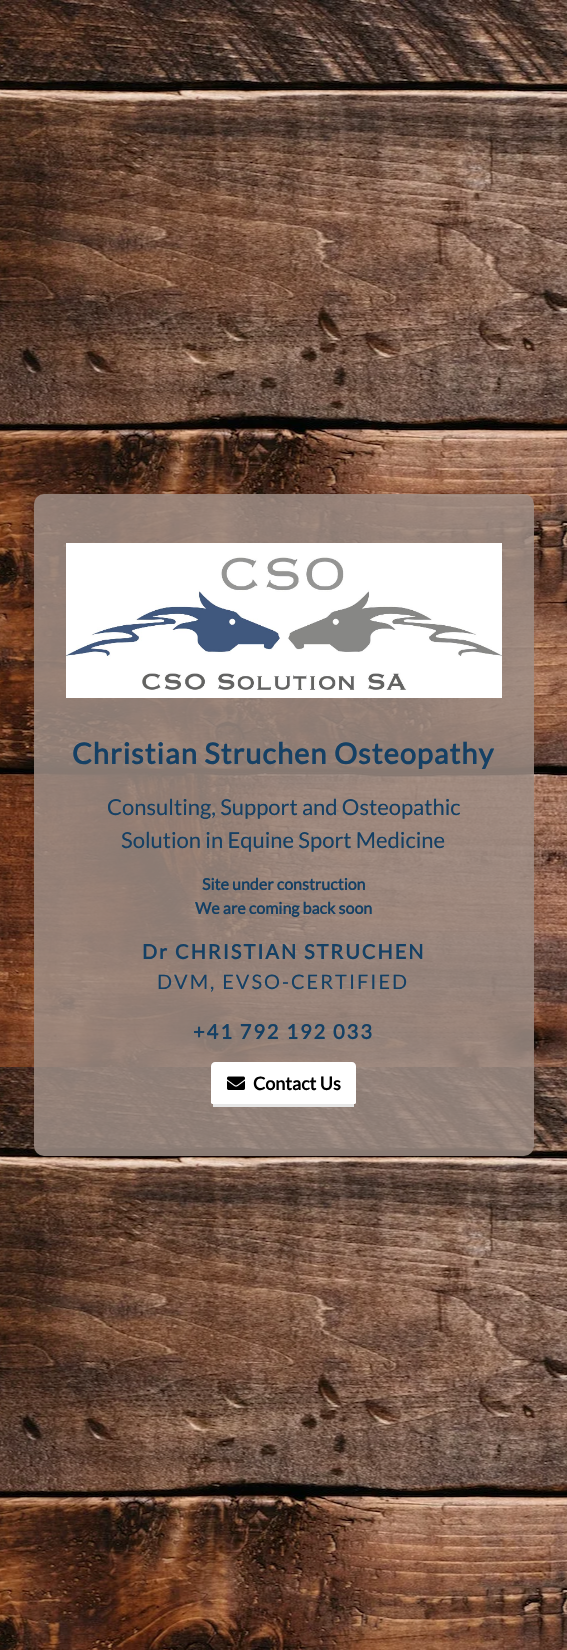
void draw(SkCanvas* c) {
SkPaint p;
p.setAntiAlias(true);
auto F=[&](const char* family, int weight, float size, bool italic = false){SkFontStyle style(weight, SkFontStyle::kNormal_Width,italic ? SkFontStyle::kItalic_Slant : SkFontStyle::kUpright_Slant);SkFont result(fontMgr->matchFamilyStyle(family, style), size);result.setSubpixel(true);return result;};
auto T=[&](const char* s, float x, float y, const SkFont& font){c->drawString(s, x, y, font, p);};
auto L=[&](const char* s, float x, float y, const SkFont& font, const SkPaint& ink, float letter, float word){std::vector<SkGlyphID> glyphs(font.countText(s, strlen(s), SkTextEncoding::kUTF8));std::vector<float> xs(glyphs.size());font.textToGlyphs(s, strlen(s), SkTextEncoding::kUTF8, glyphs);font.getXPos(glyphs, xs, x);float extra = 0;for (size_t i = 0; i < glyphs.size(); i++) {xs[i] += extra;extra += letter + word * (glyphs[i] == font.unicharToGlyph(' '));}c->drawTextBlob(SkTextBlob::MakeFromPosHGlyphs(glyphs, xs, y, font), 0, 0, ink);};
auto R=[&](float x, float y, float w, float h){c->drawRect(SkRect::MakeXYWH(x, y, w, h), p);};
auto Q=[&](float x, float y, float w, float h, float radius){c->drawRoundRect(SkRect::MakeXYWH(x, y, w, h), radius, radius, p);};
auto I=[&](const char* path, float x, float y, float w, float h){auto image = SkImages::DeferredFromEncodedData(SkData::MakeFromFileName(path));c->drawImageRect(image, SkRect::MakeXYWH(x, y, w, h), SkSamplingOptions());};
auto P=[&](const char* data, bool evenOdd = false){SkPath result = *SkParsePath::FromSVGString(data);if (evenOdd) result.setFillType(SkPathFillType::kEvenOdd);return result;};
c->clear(0xffffffff);
I("1.png",0,0,567,1650);
p.setColor(0xd99e8d85);
Q(34,494,500,662,10);
I("2.png",66,543,436,155);
auto f1 = F("Lato",700,29);
p.setColor(0xff154064);
L("Christian Struchen Osteopathy",72,764,f1,p,1,0);
auto f2 = F("Lato",400,22);
T("Consulting, Support and Osteopathic",107,815,f2);
T("Solution in Equine Sport Medicine",121,848,f2);
auto f3 = F("Lato",700,16);
T("Site under construction",202,890,f3);
T("We are coming back soon",195,914,f3);
auto f4 = F("Lato",700,20);
L("Dr CHRISTIAN STRUCHEN",142,959,f4,p,2,0);
auto f5 = F("Lato",400,20);
L("DVM, EVSO-CERTIFIED",157,989,f5,p,2,0);
L("+41 792 192 033",193,1039,f4,p,2,0);
p.setColor(0xffffffff);
c->drawPath(P("M215 1062h137c2 0 4 2 4 4v37c0 1-2 1-4 1h-137c-2 0-4 0-4-1v-37c0-2 2-4 4-4z"),p);
p.setColor(0xffe6e6e6);
R(213,1104,141,3);
I("3.png",227,1076,18,14);
auto f6 = F("Lato",700,18);
p.setColor(0xff000000);
T("Contact Us",253,1090,f6);
}
